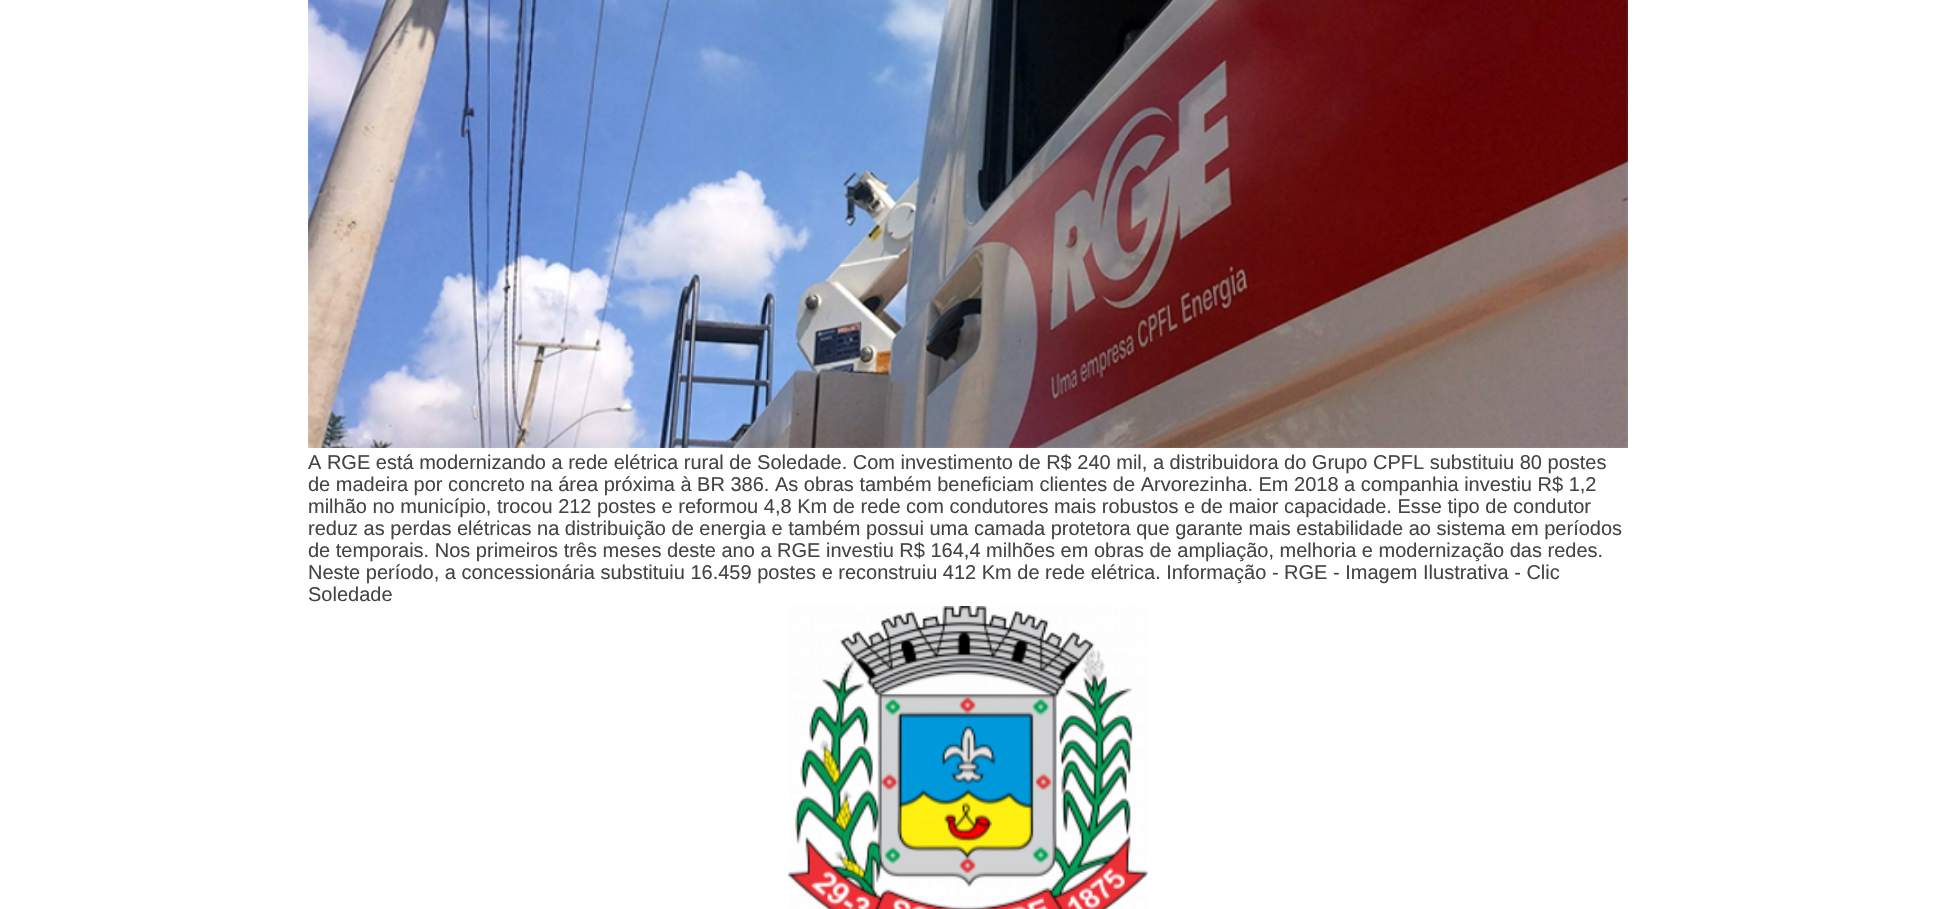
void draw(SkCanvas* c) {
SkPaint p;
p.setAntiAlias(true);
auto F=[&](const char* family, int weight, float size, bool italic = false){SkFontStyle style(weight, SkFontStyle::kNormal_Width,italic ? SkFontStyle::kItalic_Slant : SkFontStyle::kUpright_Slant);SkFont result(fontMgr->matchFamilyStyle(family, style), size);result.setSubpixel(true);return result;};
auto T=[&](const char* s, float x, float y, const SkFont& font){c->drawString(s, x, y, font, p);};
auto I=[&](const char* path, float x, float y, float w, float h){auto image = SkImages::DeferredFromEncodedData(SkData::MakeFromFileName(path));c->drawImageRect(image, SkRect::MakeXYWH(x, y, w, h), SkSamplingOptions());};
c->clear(0xffffffff);
I("1.png",308,0,1320,448);
auto f1 = F("Liberation Sans",400,20);
p.setColor(0xff444444);
T("A RGE está modernizando a rede elétrica rural de Soledade. Com investimento de R$ 240 mil, a distribuidora do Grupo CPFL substituiu 80 postes",308,469,f1);
T("de madeira por concreto na área próxima à BR 386. As obras também beneficiam clientes de Arvorezinha. Em 2018 a companhia investiu R$ 1,2",308,491,f1);
T("milhão no município, trocou 212 postes e reformou 4,8 Km de rede com condutores mais robustos e de maior capacidade. Esse tipo de condutor",308,513,f1);
T("reduz as perdas elétricas na distribuição de energia e também possui uma camada protetora que garante mais estabilidade ao sistema em períodos",308,535,f1);
T("de temporais. Nos primeiros três meses deste ano a RGE investiu R$ 164,4 milhões em obras de ampliação, melhoria e modernização das redes.",308,557,f1);
T("Neste período, a concessionária substituiu 16.459 postes e reconstruiu 412 Km de rede elétrica. Informação - RGE - Imagem Ilustrativa - Clic",308,579,f1);
T("Soledade",308,601,f1);
I("2.png",788,606,360,303);
}
